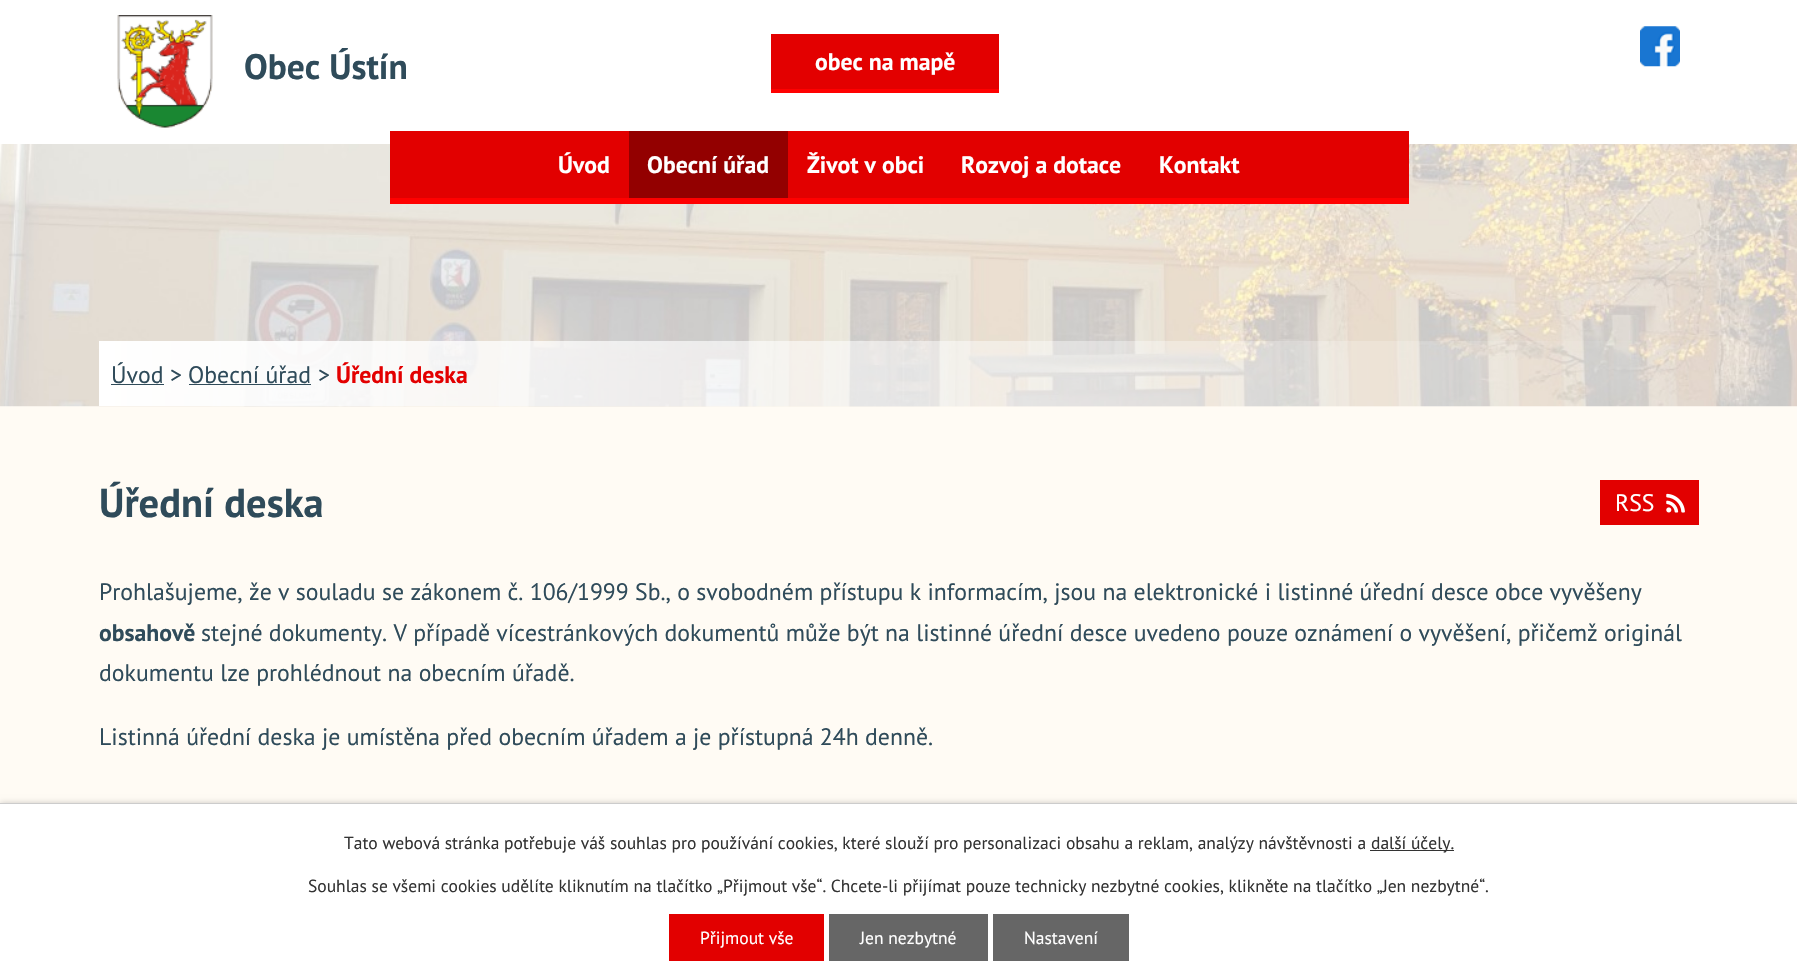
void draw(SkCanvas* c) {
SkPaint p;
p.setAntiAlias(true);
auto F=[&](const char* family, int weight, float size, bool italic = false){SkFontStyle style(weight, SkFontStyle::kNormal_Width,italic ? SkFontStyle::kItalic_Slant : SkFontStyle::kUpright_Slant);SkFont result(fontMgr->matchFamilyStyle(family, style), size);result.setSubpixel(true);return result;};
auto T=[&](const char* s, float x, float y, const SkFont& font){c->drawString(s, x, y, font, p);};
auto R=[&](float x, float y, float w, float h){c->drawRect(SkRect::MakeXYWH(x, y, w, h), p);};
auto I=[&](const char* path, float x, float y, float w, float h){auto image = SkImages::DeferredFromEncodedData(SkData::MakeFromFileName(path));c->drawImageRect(image, SkRect::MakeXYWH(x, y, w, h), SkSamplingOptions());};
c->clear(0xfffffbf4);
I("1.png",0,144,1797,263);
p.setColor(0xffffffff);
R(0,0,1797,144);
I("2.png",117,15,96,113);
auto f1 = F("PT Sans",700,35.5);
p.setColor(0xff2f4b5a);
T("Obec Ústín",244,79,f1);
p.setColor(0xffe30000);
R(771,34,228,55);
auto f2 = F("PT Sans",700,23.75);
p.setColor(0xffffffff);
T("obec na mapě",815,70,f2);
p.setColor(0xffff0101);
R(771,89,228,4);
I("3.png",1640,26,40,41);
p.setColor(0xffe20000);
R(390,131,1019,67);
p.setColor(0xffff0000);
R(390,198,1019,6);
p.setColor(0xffffffff);
T("Úvod",558,173,f2);
p.setColor(0xff930000);
R(629,131,159,67);
p.setColor(0xffffffff);
T("Obecní úřad",647,173,f2);
T("Život v obci",807,173,f2);
T("Rozvoj a dotace",961,173,f2);
T("Kontakt",1159,173,f2);
auto f3 = F("PT Sans",400,23.75);
p.setColor(0xff2f4b5a);
T("Úvod",111,383,f3);
p.setColor(0xff304b59);
R(111,384,53,1);
p.setColor(0xff2f4b5a);
T(">",170,383,f3);
T("Obecní úřad",188,383,f3);
p.setColor(0xff304b59);
R(189,384,122,1);
p.setColor(0xff2f4b5a);
T(">",318,383,f3);
p.setColor(0xffe30000);
T("Úřední deska",336,383,f2);
auto f4 = F("PT Sans",700,40.5);
p.setColor(0xff2f4b5a);
T("Úřední deska",99,517,f4);
p.setColor(0xffe20000);
R(1600,480,99,45);
p.setColor(0xffffffff);
T("RSS",1615,511,f3);
I("4.png",1666,493,19,20);
p.setColor(0xff2f4b5a);
T("Prohlašujeme, že v souladu se zákonem č. 106/1999 Sb., o svobodném přístupu k informacím, jsou na elektronické i listinné úřední desce obce vyvěšeny",99,600,f3);
T("obsahově",99,641,f2);
T("stejné dokumenty. V případě vícestránkových dokumentů může být na listinné úřední desce uvedeno pouze oznámení o vyvěšení, přičemž originál",201,641,f3);
T("dokumentu lze prohlédnout na obecním úřadě.",99,681,f3);
T("Listinná úřední deska je umístěna před obecním úřadem a je přístupná 24h denně.",99,745,f3);
p.setColor(0x33000000);
p.setMaskFilter(SkMaskFilter::MakeBlur(kNormal_SkBlurStyle, 3));
c->drawRect(SkRect::MakeXYWH(0,803,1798,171),p);
p.setMaskFilter(nullptr);
p.setColor(0xffffffff);
R(0,804,1797,169);
p.setColor(0xffcccccc);
R(0,803,1797,1);
auto f5 = F("PT Sans",400,17.5);
p.setColor(0xff333333);
T("Tato webová stránka potřebuje váš souhlas pro používání cookies, které slouží pro personalizaci obsahu a reklam, analýzy návštěvnosti a",344,849,f5);
R(1370,850,84,1);
T("další účely.",1371,849,f5);
T("Souhlas se všemi cookies udělíte kliknutím na tlačítko „Přijmout vše“. Chcete-li přijímat pouze technicky nezbytné cookies, klikněte na tlačítko „Jen nezbytné“.",308,892,f5);
p.setColor(0xffe20000);
R(669,914,155,47);
p.setColor(0xffffffff);
T("Přijmout vše",700,944,f5);
p.setColor(0xff666666);
R(829,914,159,47);
p.setColor(0xffffffff);
T("Jen nezbytné",860,944,f5);
p.setColor(0xff666666);
R(993,914,136,47);
p.setColor(0xffffffff);
T("Nastavení",1024,944,f5);
}
